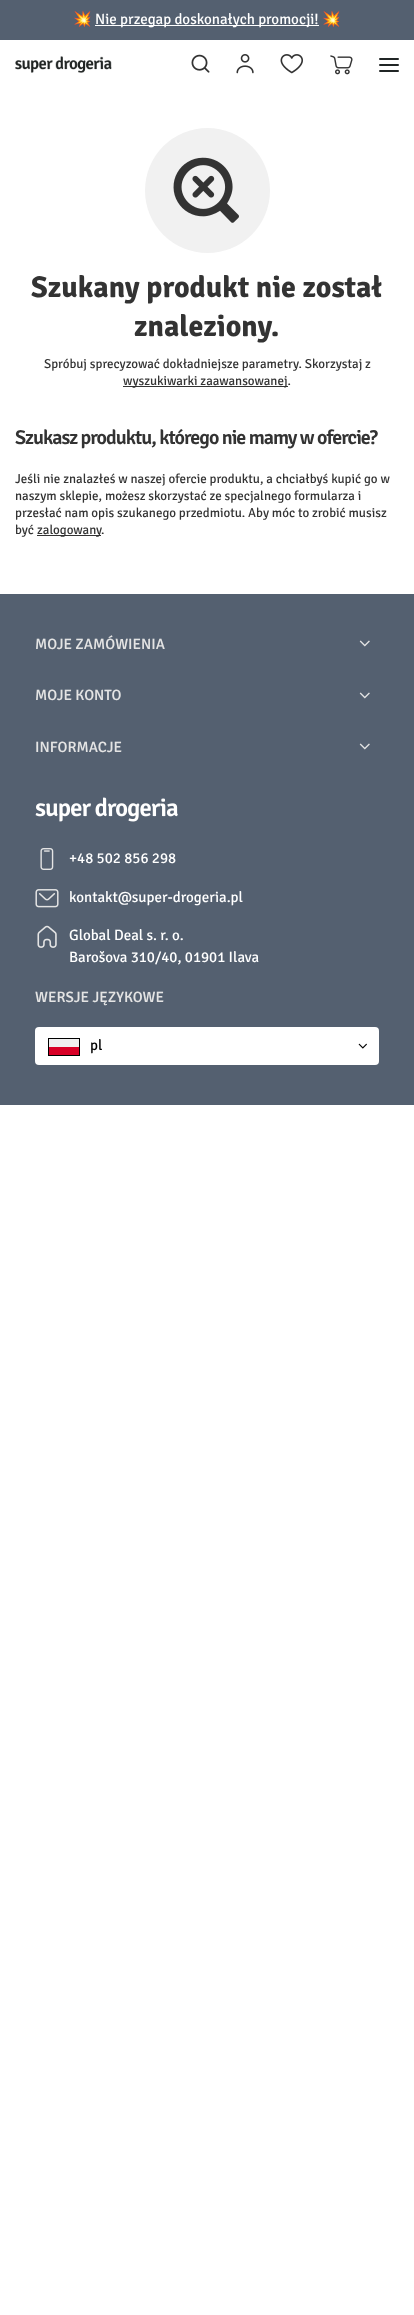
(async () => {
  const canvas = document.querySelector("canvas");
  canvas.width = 414;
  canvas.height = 2315;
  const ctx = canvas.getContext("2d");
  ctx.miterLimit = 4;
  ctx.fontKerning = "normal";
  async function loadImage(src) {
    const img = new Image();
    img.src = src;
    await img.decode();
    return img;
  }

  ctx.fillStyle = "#ffffff";
  ctx.fillRect(0, 0, 414, 2315);
  ctx.fillStyle = "#546070";
  ctx.fillRect(0, 0, 414, 40);
  ctx.fillStyle = "#ffffff";
  ctx.fillRect(95, 25, 224, 1);
  ctx.drawImage(await loadImage("img/1.png"), 15, 56, 97, 17);
  ctx.drawImage(await loadImage("img/2.png"), 191, 54, 19, 19);
  ctx.drawImage(await loadImage("img/3.png"), 236, 54, 18, 20);
  ctx.drawImage(await loadImage("img/4.png"), 280, 54, 23, 20);
  ctx.drawImage(await loadImage("img/5.png"), 330, 55, 23, 20);
  ctx.fillStyle = "#202525";
  ctx.beginPath();
  ctx.roundRect(379, 58, 20, 2, 1);
  ctx.fill();
  ctx.beginPath();
  ctx.roundRect(379, 64, 20, 2, 1);
  ctx.fill();
  ctx.beginPath();
  ctx.roundRect(379, 70, 20, 2, 1);
  ctx.fill();
  ctx.fillStyle = "#f1f1f1";
  ctx.beginPath();
  ctx.arc(207.5, 190.5, 62.5, 0, Math.PI * 2);
  ctx.fill();
  ctx.drawImage(await loadImage("img/6.png"), 173, 157, 66, 66);
  for (const [x, y, w, h, color] of [
    [123, 386, 165, 1, "#333333"],
    [37, 535, 64, 1, "#333333"],
    [0, 594, 414, 511, "#546070"],
  ]) {
    ctx.fillStyle = color;
    ctx.fillRect(x, y, w, h);
  }
  ctx.drawImage(await loadImage("img/7.png"), 359, 640, 11, 7);
  ctx.drawImage(await loadImage("img/7.png"), 359, 692, 11, 7);
  ctx.drawImage(await loadImage("img/7.png"), 359, 743, 11, 7);
  ctx.drawImage(await loadImage("img/8.png"), 35, 797, 143, 25);
  ctx.drawImage(await loadImage("img/9.png"), 40, 848, 14, 22);
  ctx.drawImage(await loadImage("img/10.png"), 35, 889, 24, 19);
  ctx.drawImage(await loadImage("img/11.png"), 37, 925, 20, 23);
  ctx.fillStyle = "#ffffff";
  ctx.beginPath();
  ctx.roundRect(35, 1027, 344, 38, 4);
  ctx.fill();
  ctx.fillStyle = "#f0f0f0";
  ctx.fillRect(49, 1039, 30, 8);
  ctx.fillStyle = "#d80027";
  ctx.fillRect(49, 1047, 30, 8);
  ctx.strokeStyle = "#000000";
  ctx.strokeRect(48.5, 1038.5, 31, 17);
  ctx.drawImage(await loadImage("img/12.png"), 358, 1043, 9, 6);
  ctx.font = "15px Noto Color Emoji";
  ctx.fillStyle = "#ffffff";
  ctx.fillText("💥", 73, 24);
  ctx.font = "15px Signika";
  ctx.fillText("Nie przegap doskonałych promocji!", 95, 24);
  ctx.font = "15px Noto Color Emoji";
  ctx.fillText("💥", 322, 24);
  ctx.font = "bold 30px Signika";
  ctx.fillStyle = "#333333";
  ctx.fillText("Szukany produkt nie został", 31, 297);
  ctx.fillText("znaleziony.", 134, 336);
  ctx.font = "13px Signika";
  ctx.fillText("Spróbuj sprecyzować dokładniejsze parametry. Skorzystaj z", 44, 368);
  ctx.fillText("wyszukiwarki zaawansowanej.", 123, 385);
  ctx.letterSpacing = "-1px";
  ctx.font = "600 20px Signika";
  ctx.fillText("Szukasz produktu, którego nie mamy w ofercie?", 15, 444);
  ctx.letterSpacing = "0px";
  ctx.font = "13px Signika";
  for (const [text, x, y] of [
    ["Jeśli nie znalazłeś w naszej ofercie produktu, a chciałbyś kupić go w", 15, 483],
    ["naszym sklepie, możesz skorzystać ze specjalnego formularza i", 15, 500],
    ["przesłać nam opis szukanego przedmiotu. Aby móc to zrobić musisz", 15, 517],
    ["być", 15, 534],
    ["zalogowany", 37, 534],
    [".", 101, 534],
  ]) {
    ctx.fillText(text, x, y);
  }
  ctx.font = "500 15px Signika";
  ctx.fillStyle = "#e4e4e4";
  for (const [text, x, y] of [
    ["MOJE ZAMÓWIENIA", 35, 649],
    ["MOJE KONTO", 35, 700],
    ["INFORMACJE", 35, 752],
  ]) {
    ctx.fillText(text, x, y);
  }
  ctx.font = "15px Signika";
  ctx.fillStyle = "#ffffff";
  for (const [text, x, y] of [
    ["+48 502 856 298", 69, 863],
    ["kontakt@super-drogeria.pl", 69, 902],
    ["Global Deal s. r. o.", 69, 940],
    ["Barošova 310/40, 01901 Ilava", 69, 962],
  ]) {
    ctx.fillText(text, x, y);
  }
  ctx.font = "500 15px Signika";
  ctx.fillStyle = "#e4e4e4";
  ctx.fillText("WERSJE JĘZYKOWE", 35, 1002);
  ctx.font = "15px Signika";
  ctx.fillStyle = "#000000";
  ctx.fillText("pl", 90, 1050);
})();
